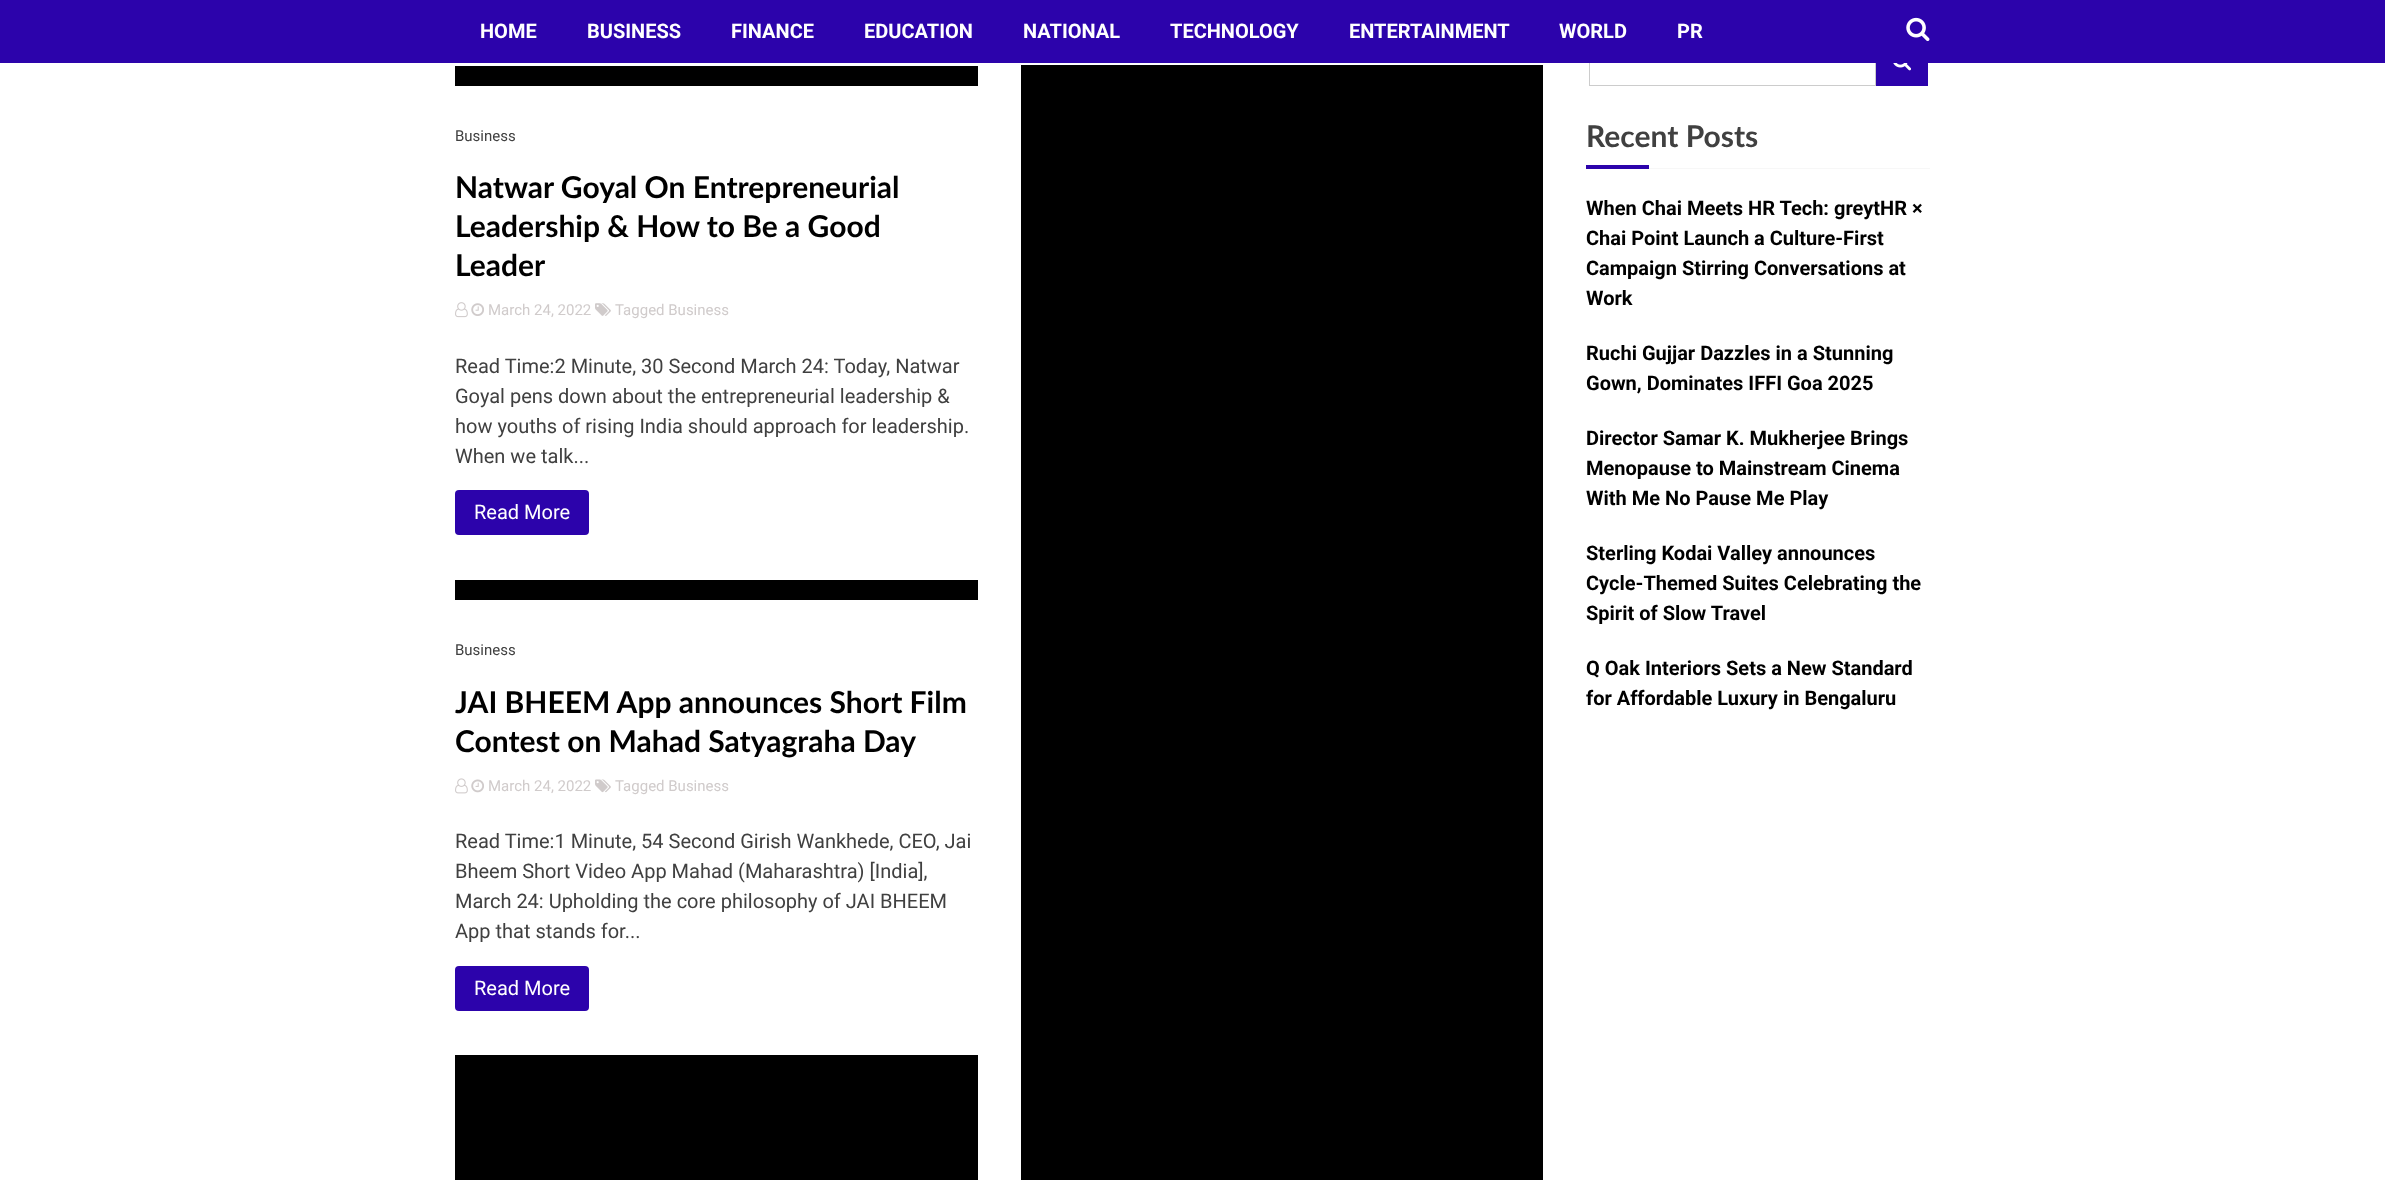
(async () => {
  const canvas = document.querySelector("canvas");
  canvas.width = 2385;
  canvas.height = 1180;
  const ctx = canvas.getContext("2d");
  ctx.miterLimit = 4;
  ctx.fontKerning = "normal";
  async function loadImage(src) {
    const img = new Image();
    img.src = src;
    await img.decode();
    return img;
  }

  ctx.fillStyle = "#ffffff";
  ctx.fillRect(0, 0, 2385, 1180);
  ctx.strokeStyle = "#cccccc";
  ctx.strokeRect(1589.5, 36.5, 286, 49);
  ctx.fillStyle = "#2c03ab";
  ctx.fillRect(0, 0, 2385, 63);
  ctx.drawImage(await loadImage("img/1.png"), 1906, 17, 24, 25);
  ctx.fillStyle = "#000000";
  ctx.fillRect(455, 66, 523, 20);
  ctx.drawImage(await loadImage("img/2.png"), 455, 302, 13, 16);
  ctx.drawImage(await loadImage("img/3.png"), 471, 303, 13, 13);
  ctx.drawImage(await loadImage("img/4.png"), 595, 303, 16, 13);
  ctx.fillStyle = "#2c03ab";
  ctx.beginPath();
  ctx.roundRect(455, 490, 134, 45, 4);
  ctx.fill();
  ctx.fillStyle = "#000000";
  ctx.fillRect(1021, 65, 522, 1115);
  ctx.fillRect(455, 580, 523, 20);
  ctx.drawImage(await loadImage("img/5.png"), 455, 778, 13, 16);
  ctx.drawImage(await loadImage("img/6.png"), 471, 779, 13, 14);
  ctx.drawImage(await loadImage("img/7.png"), 595, 779, 16, 14);
  ctx.fillStyle = "#2c03ab";
  ctx.beginPath();
  ctx.roundRect(455, 966, 134, 45, 4);
  ctx.fill();
  ctx.fillStyle = "#000000";
  ctx.fillRect(455, 1055, 523, 125);
  ctx.fillStyle = "#2c03ab";
  ctx.fillRect(1876, 63, 52, 23);
  ctx.drawImage(await loadImage("img/8.png"), 1893, 63, 18, 8);
  ctx.fillStyle = "#f7f7f7";
  ctx.fillRect(1649, 168, 281, 1);
  ctx.fillStyle = "#2c03ab";
  ctx.fillRect(1586, 165, 63, 4);
  ctx.font = "bold 20px Roboto";
  ctx.fillStyle = "#ffffff";
  for (const [text, x, y] of [
    ["HOME", 480, 38],
    ["BUSINESS", 587, 38],
    ["FINANCE", 731, 38],
    ["EDUCATION", 864, 38],
    ["NATIONAL", 1023, 38],
    ["TECHNOLOGY", 1170, 38],
    ["ENTERTAINMENT", 1349, 38],
    ["WORLD", 1559, 38],
    ["PR", 1677, 38],
  ]) {
    ctx.fillText(text, x, y);
  }
  ctx.font = "15px Roboto";
  ctx.fillStyle = "#404040";
  ctx.fillText("Business", 455, 141);
  ctx.font = "bold 30px Lato";
  ctx.fillStyle = "#000000";
  for (const [text, x, y] of [
    ["Natwar Goyal On Entrepreneurial", 455, 198],
    ["Leadership & How to Be a Good", 455, 237],
    ["Leader", 455, 276],
  ]) {
    ctx.fillText(text, x, y);
  }
  ctx.font = "15px Roboto";
  ctx.fillStyle = "#d0cbcb";
  ctx.fillText("March 24, 2022", 488, 315);
  ctx.fillText("Tagged Business", 615, 315);
  ctx.font = "20px Roboto";
  ctx.fillStyle = "#404040";
  for (const [text, x, y] of [
    ["Read Time:2 Minute, 30 Second March 24: Today, Natwar", 455, 373],
    ["Goyal pens down about the entrepreneurial leadership &", 455, 403],
    ["how youths of rising India should approach for leadership.", 455, 433],
    ["When we talk...", 455, 463],
  ]) {
    ctx.fillText(text, x, y);
  }
  ctx.fillStyle = "#ffffff";
  ctx.fillText("Read More", 474, 519);
  ctx.font = "15px Roboto";
  ctx.fillStyle = "#404040";
  ctx.fillText("Business", 455, 655);
  ctx.font = "bold 30px Lato";
  ctx.fillStyle = "#000000";
  ctx.fillText("JAI BHEEM App announces Short Film", 455, 713);
  ctx.fillText("Contest on Mahad Satyagraha Day", 455, 752);
  ctx.font = "15px Roboto";
  ctx.fillStyle = "#d0cbcb";
  ctx.fillText("March 24, 2022", 488, 791);
  ctx.fillText("Tagged Business", 615, 791);
  ctx.font = "20px Roboto";
  ctx.fillStyle = "#404040";
  for (const [text, x, y] of [
    ["Read Time:1 Minute, 54 Second Girish Wankhede, CEO, Jai", 455, 848],
    ["Bheem Short Video App Mahad (Maharashtra) [India],", 455, 878],
    ["March 24: Upholding the core philosophy of JAI BHEEM", 455, 908],
    ["App that stands for...", 455, 938],
  ]) {
    ctx.fillText(text, x, y);
  }
  ctx.fillStyle = "#ffffff";
  ctx.fillText("Read More", 474, 995);
  ctx.font = "bold 30px Lato";
  ctx.fillStyle = "#404040";
  ctx.fillText("Recent Posts", 1586, 147);
  ctx.font = "bold 20px Roboto";
  ctx.fillStyle = "#000000";
  for (const [text, x, y] of [
    ["When Chai Meets HR Tech: greytHR ×", 1586, 215],
    ["Chai Point Launch a Culture-First", 1586, 245],
    ["Campaign Stirring Conversations at", 1586, 275],
    ["Work", 1586, 305],
    ["Ruchi Gujjar Dazzles in a Stunning", 1586, 360],
    ["Gown, Dominates IFFI Goa 2025", 1586, 390],
    ["Director Samar K. Mukherjee Brings", 1586, 445],
    ["Menopause to Mainstream Cinema", 1586, 475],
    ["With Me No Pause Me Play", 1586, 505],
    ["Sterling Kodai Valley announces", 1586, 560],
    ["Cycle-Themed Suites Celebrating the", 1586, 590],
    ["Spirit of Slow Travel", 1586, 620],
    ["Q Oak Interiors Sets a New Standard", 1586, 675],
    ["for Affordable Luxury in Bengaluru", 1586, 705],
  ]) {
    ctx.fillText(text, x, y);
  }
})();
